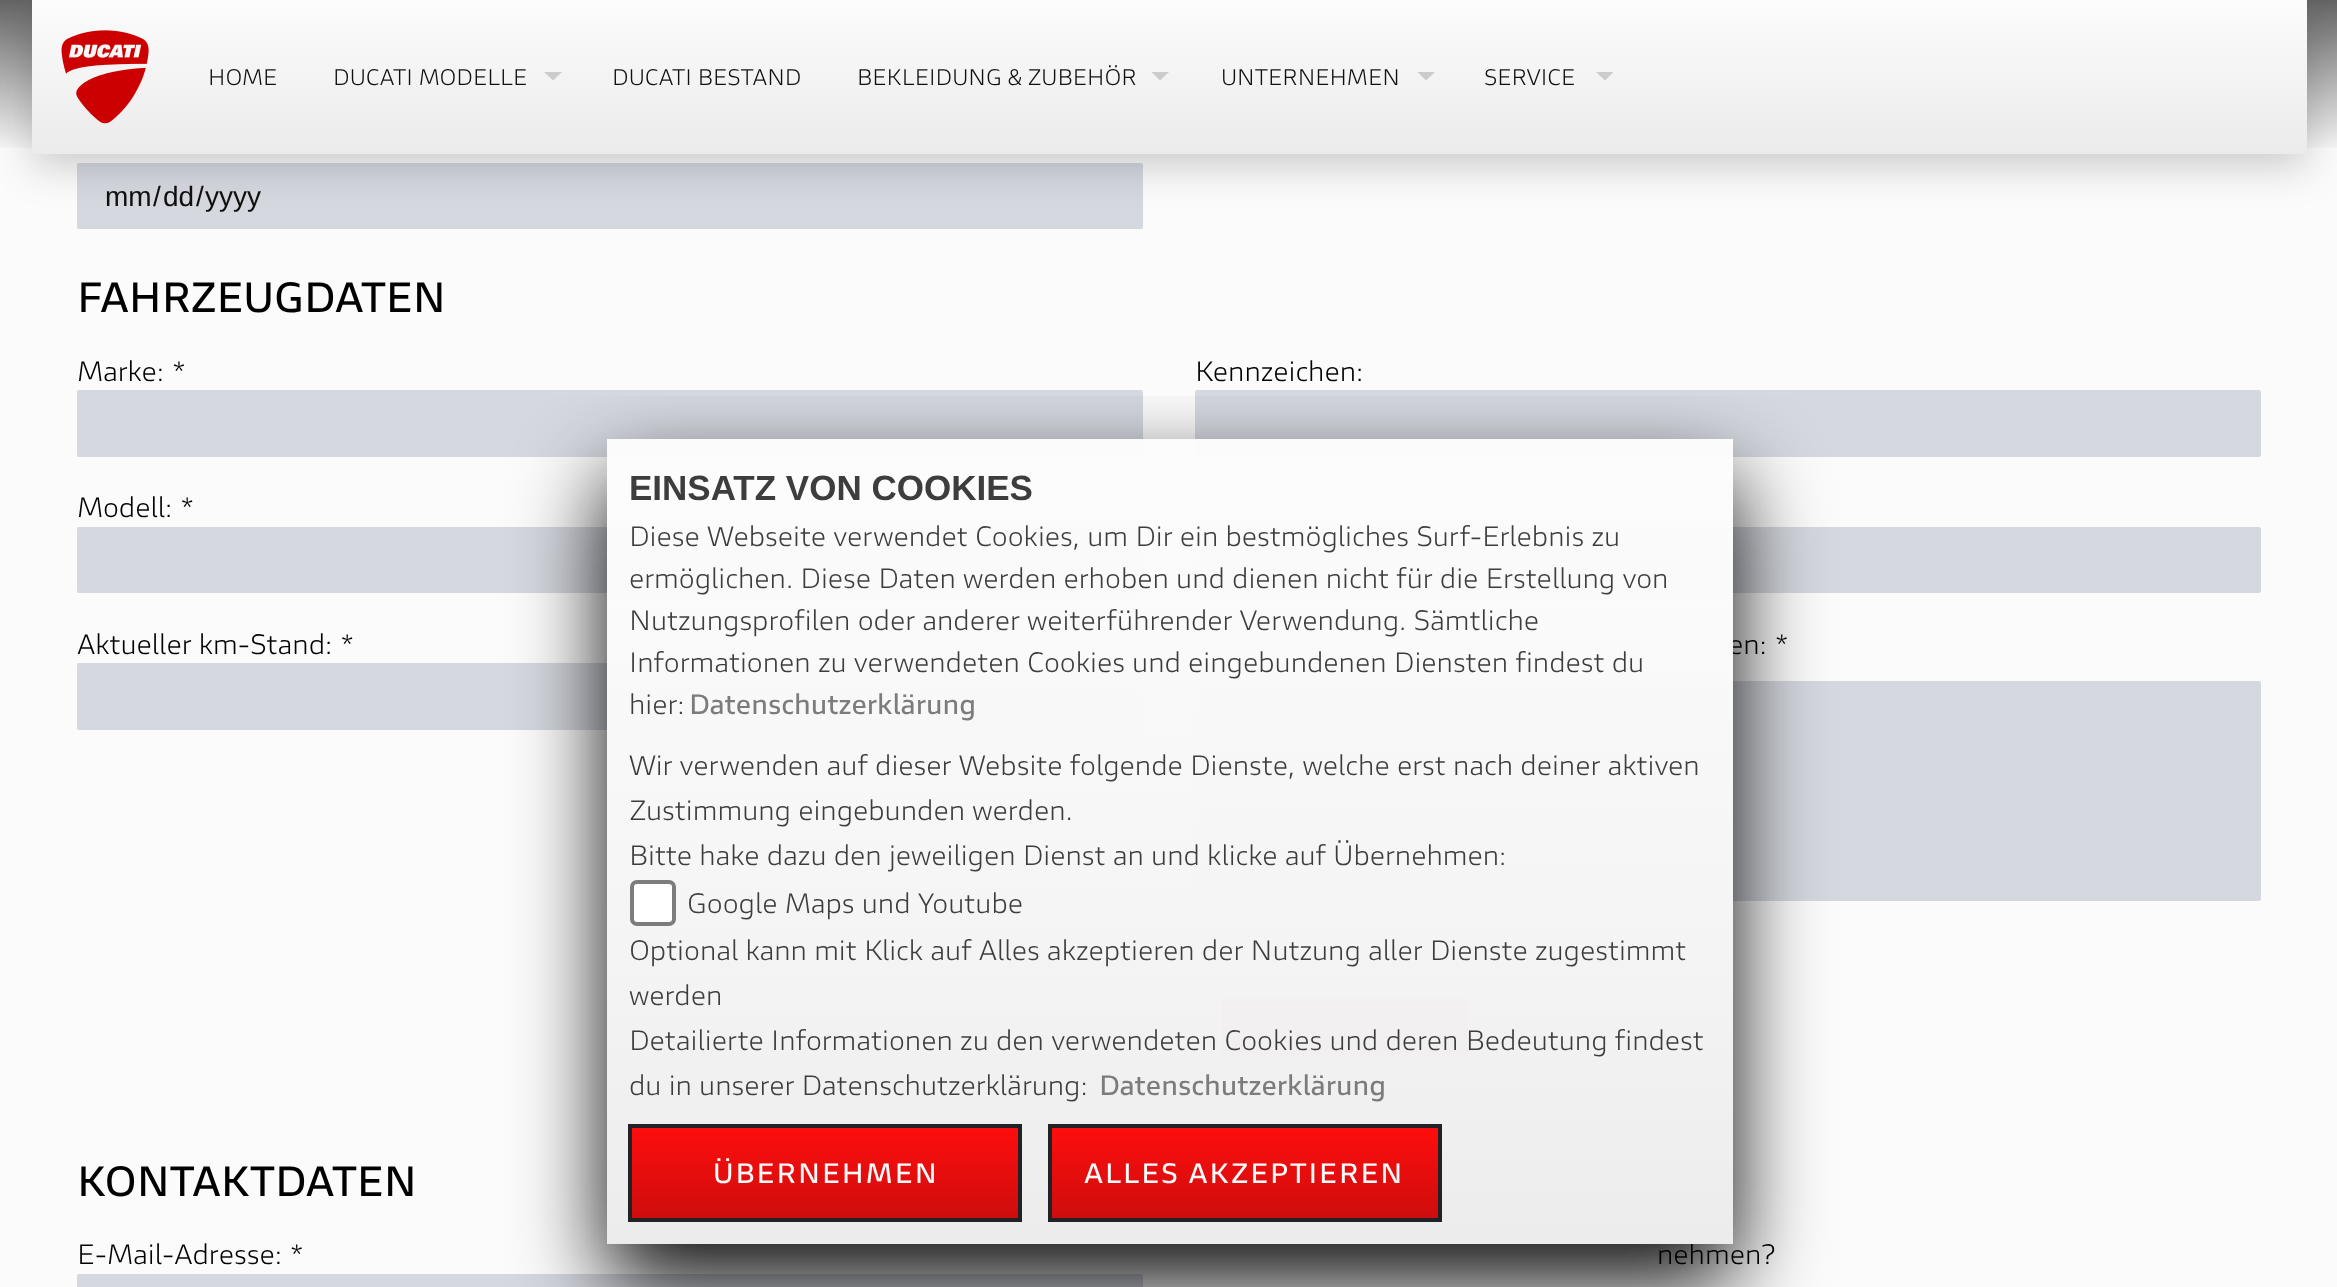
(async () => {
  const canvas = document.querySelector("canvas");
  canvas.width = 2337;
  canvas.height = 1287;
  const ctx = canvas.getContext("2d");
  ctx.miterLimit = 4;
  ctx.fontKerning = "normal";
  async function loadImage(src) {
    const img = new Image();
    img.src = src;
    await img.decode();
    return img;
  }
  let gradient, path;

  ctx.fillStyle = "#fbfbfb";
  ctx.fillRect(0, 0, 2337, 1287);
  gradient = ctx.createLinearGradient(1169, 154, 1169, 0);
  gradient.addColorStop(0, "rgba(0, 0, 0, 0)");
  gradient.addColorStop(1, "rgba(0, 0, 0, 0.6)");
  ctx.fillStyle = gradient;
  ctx.fillRect(0, 0, 2337, 148);
  ctx.fillStyle = "#d5d8df";
  ctx.beginPath();
  ctx.roundRect(77, 163, 1066, 66, 2);
  ctx.fill();
  ctx.fillStyle = "rgba(0, 0, 0, 0.2)";
  ctx.filter = "blur(21px)";
  ctx.beginPath();
  ctx.rect(32, 11, 2275, 154);
  ctx.fill();
  ctx.filter = "none";
  gradient = ctx.createLinearGradient(1169, 0, 1169, 154);
  gradient.addColorStop(0, "#fcfcfc");
  gradient.addColorStop(1, "#ebebeb");
  ctx.fillStyle = gradient;
  ctx.fillRect(32, 0, 2275, 154);
  ctx.drawImage(await loadImage("img/1.png"), 61, 30, 88, 94);
  ctx.fillStyle = "#cccccc";
  path = new Path2D("M544 72H562L553 80.5Z");
  ctx.fill(path);
  path = new Path2D("M1151.5 72H1169L1160 80.5Z");
  ctx.fill(path);
  path = new Path2D("M1417.5 72H1435L1426 80.5Z");
  ctx.fill(path);
  path = new Path2D("M1596 72H1613.5L1605 80.5Z");
  ctx.fill(path);
  ctx.fillStyle = "#d5d8df";
  ctx.beginPath();
  ctx.roundRect(77, 390, 1066, 67, 2);
  ctx.fill();
  ctx.beginPath();
  ctx.roundRect(77, 527, 1066, 66, 2);
  ctx.fill();
  ctx.beginPath();
  ctx.roundRect(77, 663, 1066, 67, 2);
  ctx.fill();
  ctx.beginPath();
  ctx.roundRect(1195, 390, 1066, 67, 2);
  ctx.fill();
  ctx.beginPath();
  ctx.roundRect(1195, 527, 1066, 66, 2);
  ctx.fill();
  ctx.beginPath();
  ctx.roundRect(1195, 681, 1066, 220, 2);
  ctx.fill();
  ctx.fillStyle = "#cc0000";
  ctx.fillRect(1222, 998, 246, 59);
  ctx.fillStyle = "#d5d8df";
  ctx.beginPath();
  ctx.roundRect(77, 1274, 1066, 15, 2);
  ctx.fill();
  ctx.save();
  ctx.beginPath();
  ctx.rect(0, 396, 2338, 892);
  ctx.clip();
  path = new Path2D("M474 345H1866V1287H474ZM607 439H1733V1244H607Z");
  ctx.clip(path, "evenodd");
  ctx.fillStyle = "rgba(0, 0, 0, 0.95)";
  ctx.filter = "blur(44px)";
  ctx.beginPath();
  ctx.rect(607, 478, 1126, 805);
  ctx.fill();
  ctx.filter = "none";
  ctx.restore();
  ctx.font = "22.4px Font";
  ctx.fillStyle = "#0f0f0f";
  for (const [text, x, y] of [
    ["HOME", 208, 85],
    ["DUCATI MODELLE", 333, 85],
    ["DUCATI BESTAND", 612, 85],
    ["BEKLEIDUNG & ZUBEHÖR", 857, 85],
    ["UNTERNEHMEN", 1221, 85],
    ["SERVICE", 1484, 85],
  ]) {
    ctx.fillText(text, x, y);
  }
  ctx.font = "28px Liberation Sans";
  for (const [text, x, y] of [
    ["mm", 105, 206],
    ["/", 153, 206],
    ["dd", 163, 206],
    ["/", 196, 206],
    ["yyyy", 205, 206],
  ]) {
    ctx.fillText(text, x, y);
  }
  ctx.font = "bold 42px Font";
  ctx.fillStyle = "#000000";
  ctx.fillText("FAHRZEUGDATEN", 77, 312);
  ctx.font = "28px Font";
  for (const [text, x, y] of [
    ["Marke: *", 77, 381],
    ["Modell: *", 77, 517],
    ["Aktueller km-Stand: *", 77, 654],
    ["Kennzeichen:", 1195, 381],
    ["en: *", 1728, 654],
  ]) {
    ctx.fillText(text, x, y);
  }
  ctx.font = "bold 42px Font";
  ctx.fillText("KONTAKTDATEN", 77, 1196);
  ctx.font = "28px Font";
  ctx.fillText("E-Mail-Adresse: *", 77, 1264);
  ctx.fillText("nehmen?", 1657, 1264);
  ctx.fillStyle = "rgba(250, 250, 250, 0.95)";
  ctx.fillRect(607, 439, 1126, 805);
  gradient = ctx.createLinearGradient(1170, 439, 1170, 1244);
  gradient.addColorStop(0, "rgba(255, 255, 255, 0.47)");
  gradient.addColorStop(1, "rgba(235, 235, 235, 0.95)");
  ctx.fillStyle = gradient;
  ctx.fillRect(607, 439, 1126, 805);
  ctx.font = "bold 35px Liberation Sans";
  ctx.fillStyle = "#3d3d3d";
  ctx.fillText("EINSATZ VON COOKIES", 629, 500);
  ctx.font = "28px Font";
  for (const [text, x, y] of [
    ["Diese Webseite verwendet Cookies, um Dir ein bestmögliches Surf-Erlebnis zu", 629, 546],
    ["ermöglichen. Diese Daten werden erhoben und dienen nicht für die Erstellung von", 629, 588],
    ["Nutzungsprofilen oder anderer weiterführender Verwendung. Sämtliche", 629, 630],
    ["Informationen zu verwendeten Cookies und eingebundenen Diensten findest du", 629, 672],
    ["hier:", 629, 714],
  ]) {
    ctx.fillText(text, x, y);
  }
  ctx.font = "bold 28px Font";
  ctx.fillStyle = "#7c7c7c";
  ctx.fillText("Datenschutzerklärung", 689, 714);
  ctx.font = "28px Font";
  ctx.fillStyle = "#3d3d3d";
  for (const [text, x, y] of [
    ["Wir verwenden auf dieser Website folgende Dienste, welche erst nach deiner aktiven", 629, 775],
    ["Zustimmung eingebunden werden.", 629, 820],
    ["Bitte hake dazu den jeweiligen Dienst an und klicke auf Übernehmen:", 629, 865],
  ]) {
    ctx.fillText(text, x, y);
  }
  ctx.fillStyle = "#ffffff";
  ctx.beginPath();
  ctx.roundRect(632, 882, 42, 42, 5);
  ctx.fill();
  ctx.strokeStyle = "#7d7d7d";
  ctx.lineWidth = 4;
  ctx.stroke();
  ctx.fillStyle = "#3d3d3d";
  for (const [text, x, y] of [
    ["Google Maps und Youtube", 687, 913],
    ["Optional kann mit Klick auf Alles akzeptieren der Nutzung aller Dienste zugestimmt", 629, 960],
    ["werden", 629, 1005],
    ["Detailierte Informationen zu den verwendeten Cookies und deren Bedeutung findest", 629, 1050],
    ["du in unserer Datenschutzerklärung:", 629, 1095],
  ]) {
    ctx.fillText(text, x, y);
  }
  ctx.font = "bold 28px Font";
  ctx.fillStyle = "#7c7c7c";
  ctx.fillText("Datenschutzerklärung", 1099, 1095);
  gradient = ctx.createLinearGradient(825, 1127, 825, 1218);
  gradient.addColorStop(0, "#ff0d0d");
  gradient.addColorStop(1, "#ce0d0d");
  ctx.fillStyle = gradient;
  ctx.fillRect(632, 1128, 386, 90);
  ctx.strokeStyle = "#212225";
  ctx.strokeRect(630, 1126, 390, 94);
  ctx.letterSpacing = "1.9px";
  ctx.fillStyle = "#fafafa";
  ctx.fillText("ÜBERNEHMEN", 713, 1183);
  gradient = ctx.createLinearGradient(1245, 1127, 1245, 1218);
  gradient.addColorStop(0, "#ff0d0d");
  gradient.addColorStop(1, "#ce0d0d");
  ctx.fillStyle = gradient;
  ctx.fillRect(1052, 1128, 386, 90);
  ctx.strokeRect(1050, 1126, 390, 94);
  ctx.fillStyle = "#fafafa";
  ctx.fillText("ALLES AKZEPTIEREN", 1084, 1183);
})();
